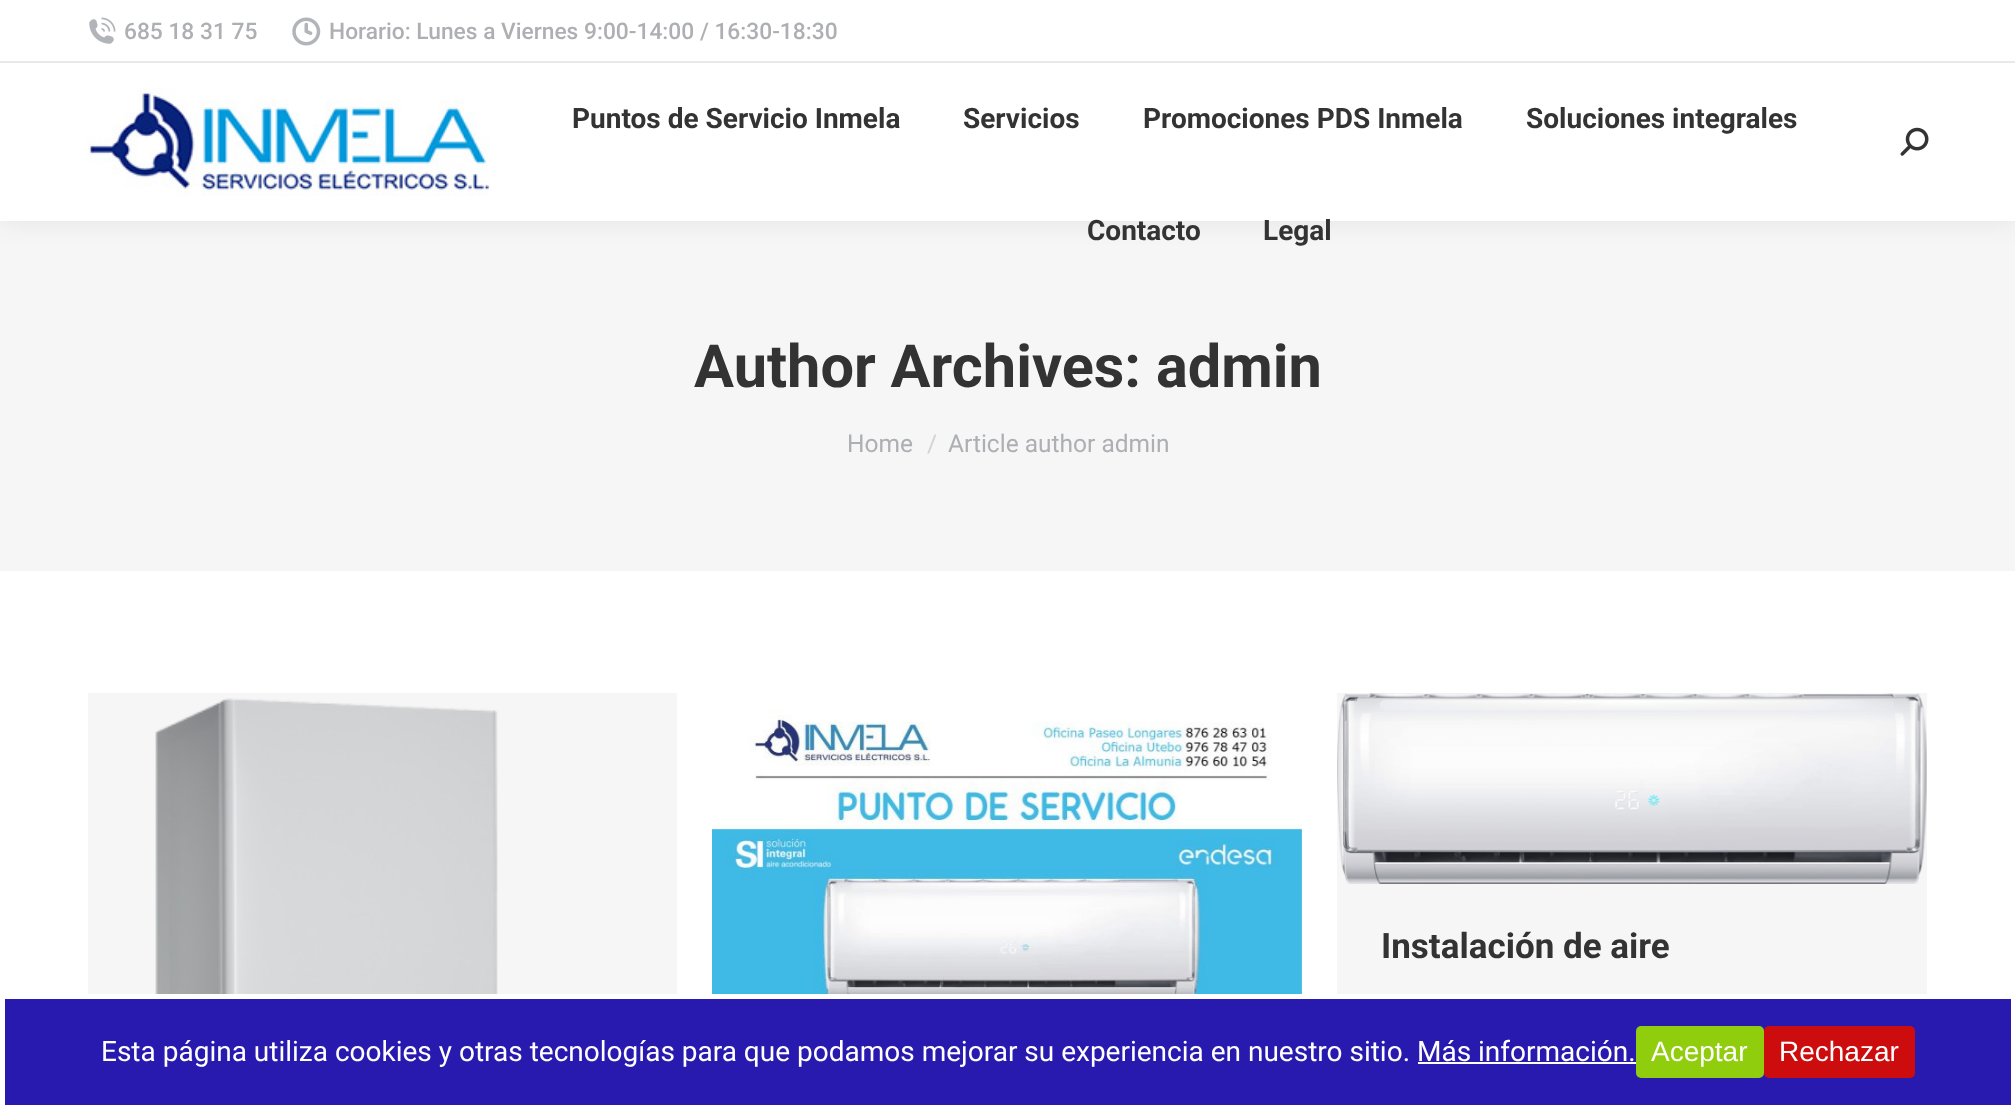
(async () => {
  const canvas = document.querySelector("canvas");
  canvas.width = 2015;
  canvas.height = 1108;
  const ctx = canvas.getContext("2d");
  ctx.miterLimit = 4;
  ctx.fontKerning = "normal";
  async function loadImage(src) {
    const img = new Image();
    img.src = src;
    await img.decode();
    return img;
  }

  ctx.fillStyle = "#ffffff";
  ctx.fillRect(0, 0, 2015, 1108);
  ctx.fillStyle = "#f6f6f6";
  ctx.fillRect(0, 221, 2015, 350);
  ctx.fillStyle = "rgba(0, 0, 0, 0.07)";
  ctx.filter = "blur(13px)";
  ctx.beginPath();
  ctx.rect(-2, -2, 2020, 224);
  ctx.fill();
  ctx.filter = "none";
  ctx.fillStyle = "#ffffff";
  ctx.fillRect(0, 0, 2015, 221);
  ctx.drawImage(await loadImage("img/1.png"), 89, 17, 27, 27);
  ctx.drawImage(await loadImage("img/2.png"), 292, 17, 29, 29);
  ctx.fillStyle = "#e9e9e9";
  ctx.fillRect(0, 61, 2015, 2);
  ctx.drawImage(await loadImage("img/3.png"), 87, 88, 403, 108);
  ctx.drawImage(await loadImage("img/4.png"), 1900, 127, 29, 29);
  ctx.fillStyle = "#f6f6f6";
  ctx.fillRect(88, 693, 589, 301);
  ctx.drawImage(await loadImage("img/5.png"), 155, 698, 343, 296);
  ctx.drawImage(await loadImage("img/6.png"), 712, 693, 590, 301);
  ctx.fillRect(1337, 693, 590, 301);
  ctx.drawImage(await loadImage("img/7.png"), 1337, 693, 590, 191);
  ctx.fillStyle = "#291aaf";
  ctx.beginPath();
  ctx.roundRect(2.5, 996.5, 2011, 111, 2.5);
  ctx.fill();
  ctx.strokeStyle = "#ffffff";
  ctx.lineWidth = 5;
  ctx.stroke();
  ctx.fillStyle = "#ffffff";
  ctx.fillRect(1418, 1062, 218, 2);
  ctx.fillStyle = "#90cd0d";
  ctx.beginPath();
  ctx.roundRect(1636, 1026, 128, 52, 5);
  ctx.fill();
  ctx.fillStyle = "#cd0d0d";
  ctx.beginPath();
  ctx.roundRect(1764, 1026, 151, 52, 5);
  ctx.fill();
  ctx.font = "500 22.75px Roboto";
  ctx.fillStyle = "#adafb3";
  ctx.fillText("685 18 31 75", 124, 39);
  ctx.fillText("Horario: Lunes a Viernes 9:00-14:00 / 16:30-18:30", 329, 39);
  ctx.font = "bold 28px Roboto";
  ctx.fillStyle = "#333333";
  for (const [text, x, y] of [
    ["Puntos de Servicio Inmela", 572, 128],
    ["Servicios", 963, 128],
    ["Promociones PDS Inmela", 1143, 128],
    ["Soluciones integrales", 1526, 128],
    ["Contacto", 1087, 240],
    ["Legal", 1263, 240],
  ]) {
    ctx.fillText(text, x, y);
  }
  ctx.font = "bold 59.5px Roboto";
  ctx.fillText("Author Archives: admin", 694, 387);
  ctx.font = "24.5px Roboto";
  ctx.fillStyle = "#adafb3";
  ctx.fillText("Home", 847, 452);
  ctx.fillStyle = "#d2d3d5";
  ctx.fillText("/", 927, 452);
  ctx.fillStyle = "#adafb3";
  ctx.fillText("Article author admin", 948, 452);
  ctx.font = "bold 35px Roboto";
  ctx.fillStyle = "#333333";
  ctx.fillText("Instalación de aire", 1381, 958);
  ctx.font = "28px Roboto";
  ctx.fillStyle = "#ffffff";
  ctx.fillText("Esta página utiliza cookies y otras tecnologías para que podamos mejorar su experiencia en nuestro sitio. Más información.", 101, 1061);
  ctx.font = "28px Liberation Sans";
  ctx.fillText("Aceptar", 1651, 1061);
  ctx.fillText("Rechazar", 1779, 1061);
})();
